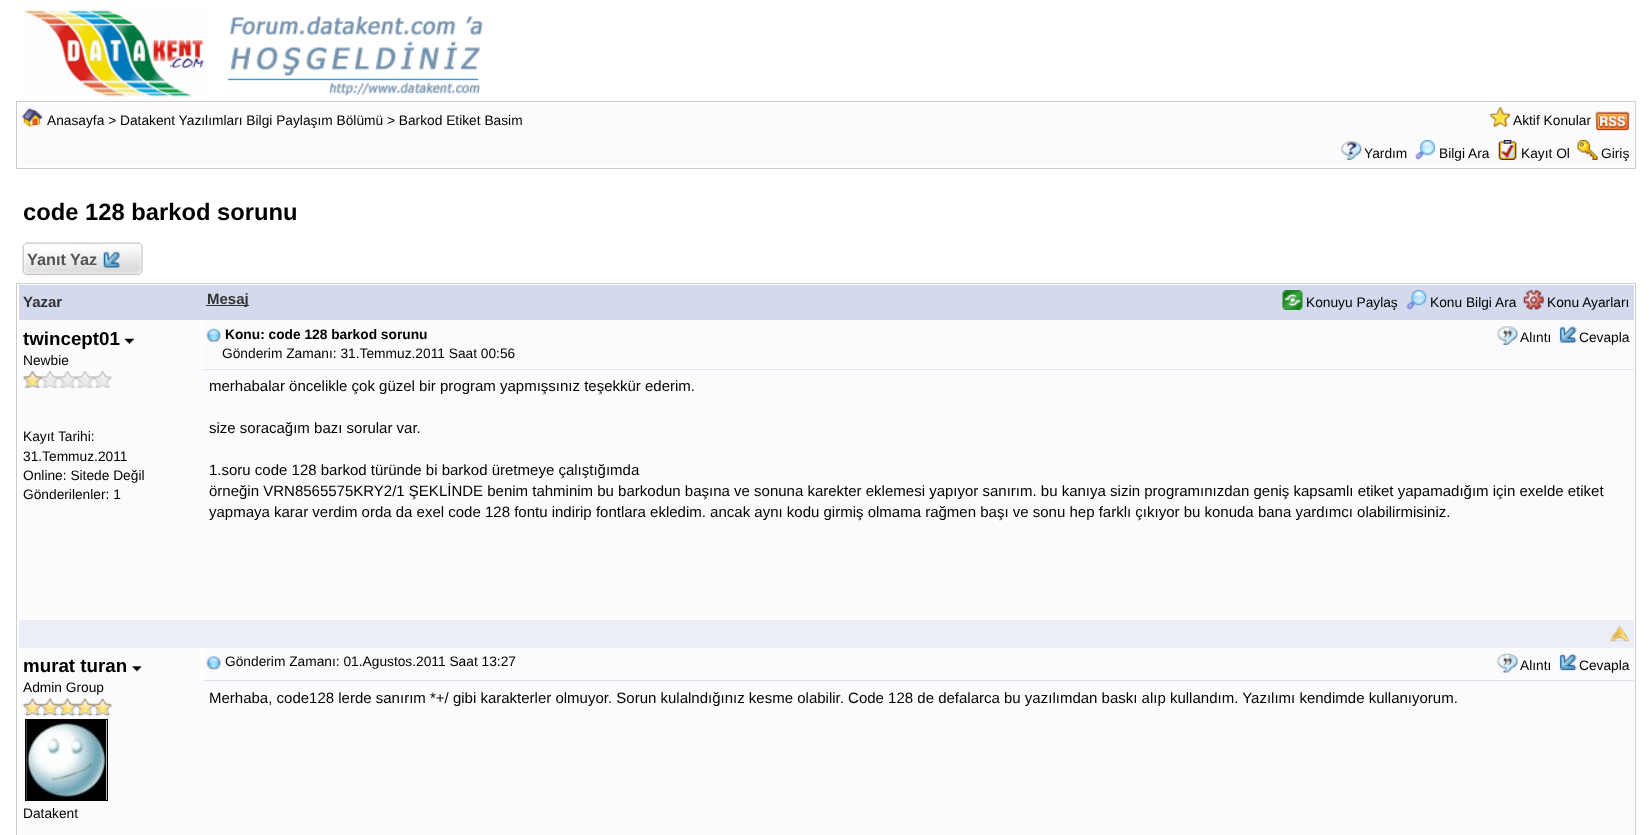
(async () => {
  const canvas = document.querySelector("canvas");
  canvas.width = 1652;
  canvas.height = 835;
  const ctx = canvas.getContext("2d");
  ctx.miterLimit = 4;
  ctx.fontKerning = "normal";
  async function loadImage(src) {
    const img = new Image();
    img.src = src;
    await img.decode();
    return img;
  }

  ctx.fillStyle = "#ffffff";
  ctx.fillRect(0, 0, 1652, 835);
  ctx.drawImage(await loadImage("img/1.png"), 23, 10, 460, 87);
  ctx.strokeStyle = "#cccccc";
  ctx.strokeRect(16.5, 101.5, 1619, 67);
  ctx.fillStyle = "#fbfbfd";
  ctx.fillRect(19, 104, 1615, 31);
  ctx.drawImage(await loadImage("img/2.png"), 22, 108, 21, 19);
  ctx.drawImage(await loadImage("img/3.png"), 1490, 107, 20, 21);
  ctx.drawImage(await loadImage("img/4.png"), 1595, 111, 35, 20);
  ctx.fillRect(19, 136, 1615, 30);
  ctx.drawImage(await loadImage("img/5.png"), 1341, 141, 21, 19);
  ctx.drawImage(await loadImage("img/6.png"), 1415, 140, 20, 20);
  ctx.drawImage(await loadImage("img/7.png"), 1498, 140, 19, 20);
  ctx.drawImage(await loadImage("img/8.png"), 1577, 140, 21, 20);
  ctx.drawImage(await loadImage("img/9.png"), 22, 242, 121, 34);
  ctx.drawImage(await loadImage("img/10.png"), 103, 251, 18, 17);
  ctx.strokeRect(16.5, 283.5, 1619, 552);
  ctx.fillStyle = "#d3daed";
  ctx.fillRect(19, 285, 1615, 35);
  ctx.fillStyle = "#333333";
  ctx.fillRect(206, 305, 43, 1);
  ctx.drawImage(await loadImage("img/11.png"), 1282, 290, 21, 20);
  ctx.drawImage(await loadImage("img/12.png"), 1406, 290, 21, 20);
  ctx.drawImage(await loadImage("img/13.png"), 1523, 290, 21, 20);
  ctx.fillStyle = "#fbfbfd";
  ctx.fillRect(19, 321, 182, 48);
  ctx.drawImage(await loadImage("img/14.png"), 125, 338, 9, 6);
  ctx.fillRect(19, 369, 1615, 250);
  ctx.drawImage(await loadImage("img/15.png"), 22, 370, 90, 19);
  ctx.fillRect(203, 321, 1431, 47);
  ctx.drawImage(await loadImage("img/16.png"), 206, 328, 16, 15);
  ctx.drawImage(await loadImage("img/17.png"), 1497, 326, 21, 19);
  ctx.drawImage(await loadImage("img/18.png"), 1559, 326, 18, 17);
  ctx.fillStyle = "#e1e3ec";
  ctx.fillRect(203, 369, 1431, 1);
  ctx.fillStyle = "#ebeef7";
  ctx.fillRect(19, 620, 1615, 28);
  ctx.drawImage(await loadImage("img/19.png"), 1610, 626, 19, 16);
  ctx.fillStyle = "#fbfbfd";
  ctx.fillRect(19, 649, 182, 31);
  ctx.drawImage(await loadImage("img/20.png"), 132, 666, 10, 6);
  ctx.fillRect(19, 680, 1615, 155);
  ctx.drawImage(await loadImage("img/21.png"), 22, 698, 91, 19);
  ctx.strokeStyle = "#000000";
  ctx.strokeRect(25.5, 719.5, 82, 81);
  ctx.drawImage(await loadImage("img/22.png"), 26, 720, 81, 80);
  ctx.fillRect(203, 649, 1431, 30);
  ctx.drawImage(await loadImage("img/23.png"), 206, 655, 16, 15);
  ctx.drawImage(await loadImage("img/24.png"), 1497, 653, 21, 20);
  ctx.drawImage(await loadImage("img/25.png"), 1559, 653, 18, 18);
  ctx.fillStyle = "#e1e3ec";
  ctx.fillRect(203, 680, 1431, 1);
  ctx.font = "13.75px Liberation Sans";
  ctx.fillStyle = "#000000";
  for (const [text, x, y] of [
    ["Anasayfa > Datakent Yazılımları Bilgi Paylaşım Bölümü > Barkod Etiket Basim", 47, 125],
    ["Aktif Konular", 1513, 125],
    ["Yardım", 1364, 158],
    ["Bilgi Ara", 1439, 158],
    ["Kayıt Ol", 1521, 158],
    ["Giriş", 1601, 158],
  ]) {
    ctx.fillText(text, x, y);
  }
  ctx.font = "bold 23.75px Liberation Sans";
  ctx.fillText("code 128 barkod sorunu", 23, 220);
  ctx.font = "bold 16.25px Liberation Sans";
  ctx.fillStyle = "#555555";
  ctx.fillText("Yanıt Yaz", 27, 265);
  ctx.font = "bold 15px Liberation Sans";
  ctx.fillStyle = "#333333";
  ctx.fillText("Yazar", 23, 307);
  ctx.fillText("Mesaj", 207, 304);
  ctx.font = "13.75px Liberation Sans";
  ctx.fillStyle = "#000000";
  for (const [text, x, y] of [
    ["Konuyu Paylaş", 1306, 307],
    ["Konu Bilgi Ara", 1430, 307],
    ["Konu Ayarları", 1547, 307],
  ]) {
    ctx.fillText(text, x, y);
  }
  ctx.font = "bold 18.75px Liberation Sans";
  ctx.fillText("twincept01", 23, 345);
  ctx.font = "13.75px Liberation Sans";
  for (const [text, x, y] of [
    ["Newbie", 23, 365],
    ["Kayıt Tarihi:", 23, 441],
    ["31.Temmuz.2011", 23, 461],
    ["Online: Sitede Değil", 23, 480],
    ["Gönderilenler: 1", 23, 499],
  ]) {
    ctx.fillText(text, x, y);
  }
  ctx.font = "bold 13.75px Liberation Sans";
  ctx.fillText("Konu: code 128 barkod sorunu", 225, 339);
  ctx.font = "13.75px Liberation Sans";
  for (const [text, x, y] of [
    ["Alıntı", 1520, 342],
    ["Cevapla", 1579, 342],
    ["Gönderim Zamanı: 31.Temmuz.2011 Saat 00:56", 222, 358],
  ]) {
    ctx.fillText(text, x, y);
  }
  ctx.font = "15px Liberation Sans";
  for (const [text, x, y] of [
    ["merhabalar öncelikle çok güzel bir program yapmışsınız teşekkür ederim.", 209, 391],
    ["size soracağım bazı sorular var.", 209, 433],
    ["1.soru code 128 barkod türünde bi barkod üretmeye çalıştığımda", 209, 475],
    ["örneğin VRN8565575KRY2/1 ŞEKLİNDE benim tahminim bu barkodun başına ve sonuna karekter eklemesi yapıyor sanırım. bu kanıya sizin programınızdan geniş kapsamlı etiket yapamadığım için exelde etiket", 209, 496],
    ["yapmaya karar verdim orda da exel code 128 fontu indirip fontlara ekledim. ancak aynı kodu girmiş olmama rağmen başı ve sonu hep farklı çıkıyor bu konuda bana yardımcı olabilirmisiniz.", 209, 517],
  ]) {
    ctx.fillText(text, x, y);
  }
  ctx.font = "bold 18.75px Liberation Sans";
  ctx.fillText("murat turan", 23, 672);
  ctx.font = "13.75px Liberation Sans";
  for (const [text, x, y] of [
    ["Admin Group", 23, 692],
    ["Datakent", 23, 818],
    ["Gönderim Zamanı: 01.Agustos.2011 Saat 13:27", 225, 666],
    ["Alıntı", 1520, 670],
    ["Cevapla", 1579, 670],
  ]) {
    ctx.fillText(text, x, y);
  }
  ctx.font = "15px Liberation Sans";
  ctx.fillText("Merhaba, code128 lerde sanırım *+/ gibi karakterler olmuyor. Sorun kulalndığınız kesme olabilir. Code 128 de defalarca bu yazılımdan baskı alıp kullandım. Yazılımı kendimde kullanıyorum.", 209, 703);
})();
